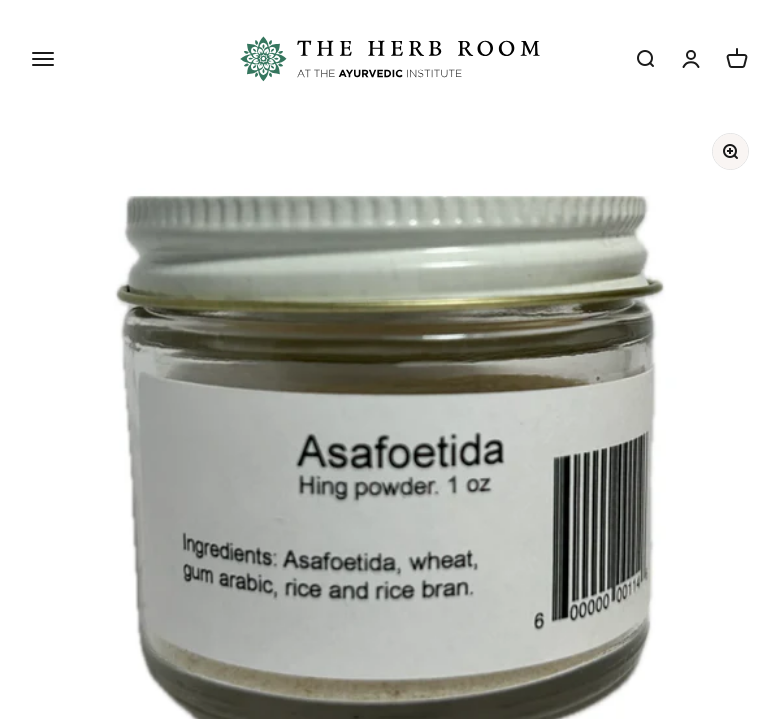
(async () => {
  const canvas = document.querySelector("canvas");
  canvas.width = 780;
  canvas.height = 719;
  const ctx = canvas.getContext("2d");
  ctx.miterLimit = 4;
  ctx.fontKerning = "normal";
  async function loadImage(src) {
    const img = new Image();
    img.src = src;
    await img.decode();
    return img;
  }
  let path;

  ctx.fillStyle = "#ffffff";
  ctx.fillRect(0, 0, 780, 719);
  ctx.drawImage(await loadImage("img/1.png"), 32, 52, 22, 14);
  ctx.drawImage(await loadImage("img/2.png"), 240, 36, 300, 46);
  ctx.drawImage(await loadImage("img/3.png"), 637, 50, 17, 17);
  ctx.beginPath();
  ctx.arc(691, 55, 4, 0, Math.PI * 2);
  ctx.strokeStyle = "#1a1a1a";
  ctx.lineWidth = 2;
  ctx.stroke();
  path = new Path2D("M683.5 67C686.5 60.5 695.5 60.5 698.5 67");
  ctx.lineCap = "round";
  ctx.stroke(path);
  ctx.drawImage(await loadImage("img/4.png"), 726, 48, 22, 20);
  ctx.drawImage(await loadImage("img/5.png"), 0, 118, 780, 601);
  ctx.beginPath();
  ctx.arc(730.5, 151.5, 18, 0, Math.PI * 2);
  ctx.strokeStyle = "#e4e4e4";
  ctx.lineWidth = 1;
  ctx.stroke();
  ctx.fillStyle = "#f9f5f3";
  ctx.beginPath();
  ctx.arc(730.5, 151.5, 17.5, 0, Math.PI * 2);
  ctx.fill();
  ctx.drawImage(await loadImage("img/6.png"), 723, 144, 15, 15);
})();
